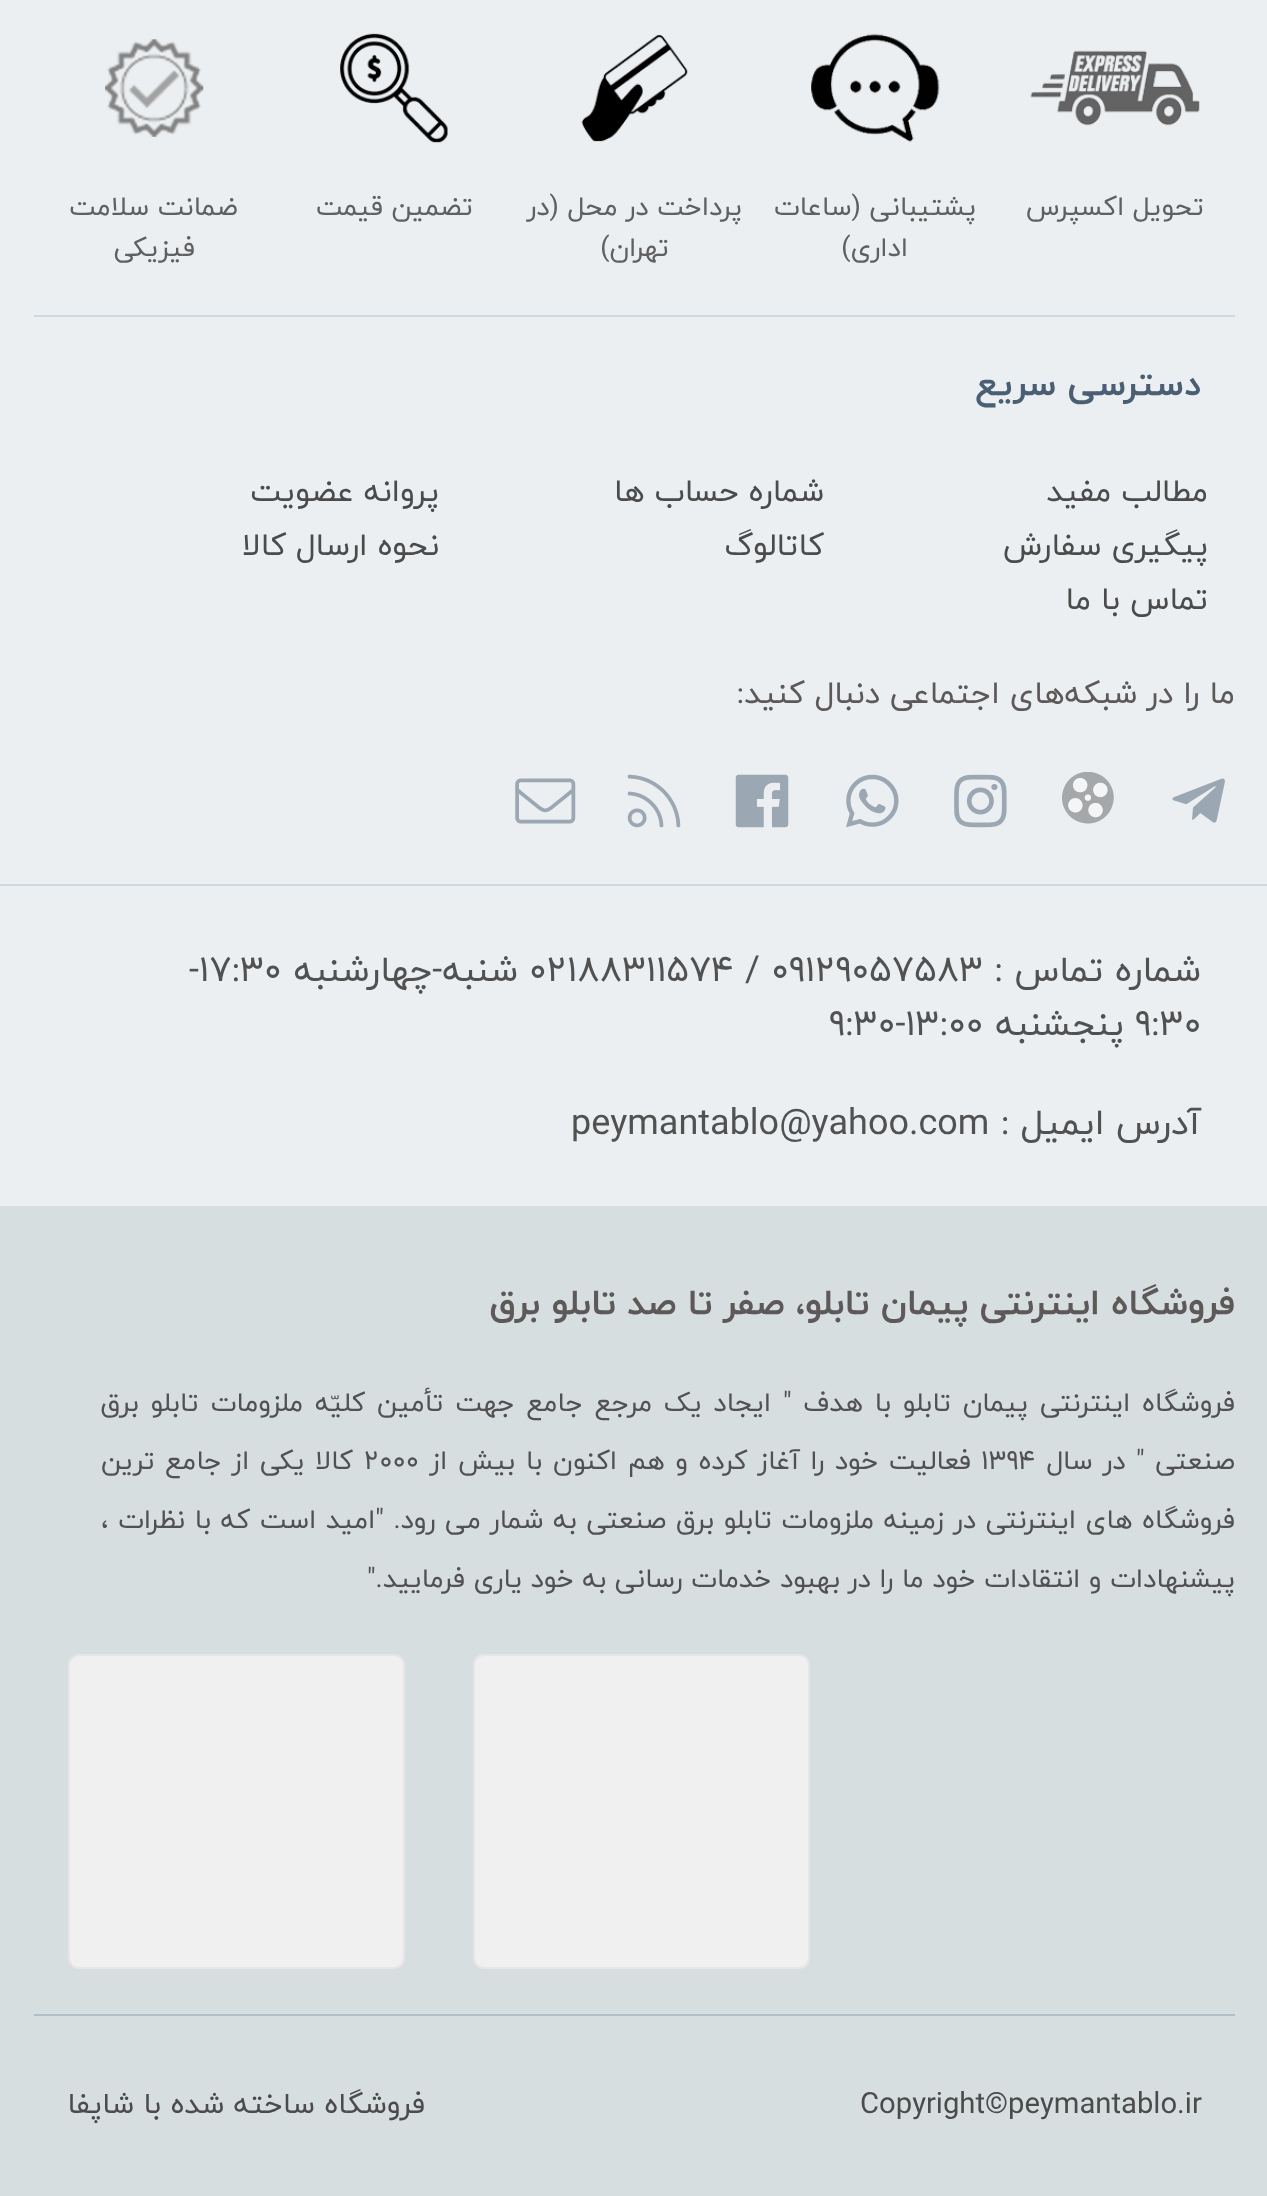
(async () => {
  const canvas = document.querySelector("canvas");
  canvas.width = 1267;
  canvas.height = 2196;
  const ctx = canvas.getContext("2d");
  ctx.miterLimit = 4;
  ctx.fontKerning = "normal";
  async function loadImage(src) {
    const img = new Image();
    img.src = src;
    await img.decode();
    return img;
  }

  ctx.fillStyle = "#eceff1";
  ctx.fillRect(0, 0, 1267, 2196);
  ctx.fillStyle = "#cfd8dc";
  ctx.fillRect(34, 315, 1201, 2);
  ctx.drawImage(await loadImage("img/1.png"), 1030, 50, 170, 76);
  ctx.drawImage(await loadImage("img/2.png"), 811, 33, 129, 110);
  ctx.drawImage(await loadImage("img/3.png"), 581, 34, 107, 108);
  ctx.drawImage(await loadImage("img/4.png"), 340, 33, 108, 110);
  ctx.drawImage(await loadImage("img/5.png"), 105, 39, 99, 98);
  ctx.fillRect(0, 884, 1267, 2);
  ctx.drawImage(await loadImage("img/6.png"), 1172, 778, 53, 45);
  ctx.drawImage(await loadImage("img/7.png"), 1062, 772, 52, 52);
  ctx.drawImage(await loadImage("img/8.png"), 954, 774, 53, 54);
  ctx.drawImage(await loadImage("img/9.png"), 846, 774, 53, 54);
  ctx.drawImage(await loadImage("img/10.png"), 735, 774, 54, 54);
  ctx.drawImage(await loadImage("img/11.png"), 627, 774, 54, 54);
  ctx.drawImage(await loadImage("img/12.png"), 515, 778, 61, 46);
  ctx.fillStyle = "#d7dee0";
  ctx.fillRect(0, 1206, 1267, 990);
  ctx.fillStyle = "#f0f0f0";
  ctx.beginPath();
  ctx.roundRect(474, 1655, 335, 313, 10);
  ctx.fill();
  ctx.strokeStyle = "#e5e5ea";
  ctx.lineWidth = 2;
  ctx.stroke();
  ctx.beginPath();
  ctx.roundRect(69, 1655, 335, 313, 10);
  ctx.fill();
  ctx.stroke();
  ctx.fillStyle = "#b0bec5";
  ctx.fillRect(34, 2014, 1201, 2);
  ctx.direction = "rtl";
  ctx.font = "27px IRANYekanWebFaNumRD";
  ctx.fillStyle = "#606060";
  for (const [text, x, y] of [
    ["تحویل اکسپرس", 1204, 215],
    ["پشتیبانی (ساعات", 976, 215],
    ["اداری)", 908, 256],
    ["پرداخت در محل (در", 742, 215],
    ["تهران)", 669, 256],
    ["تضمین قیمت", 473, 215],
    ["ضمانت سلامت", 238, 215],
    ["فیزیکی", 195, 256],
  ]) {
    ctx.fillText(text, x, y);
  }
  ctx.font = "bold 36px IRANYekanWebFaNumRD";
  ctx.fillStyle = "#4a5f73";
  ctx.fillText("دسترسی سریع", 1201, 395);
  ctx.font = "31.5px IRANYekanWebFaNumRD";
  ctx.fillStyle = "#4b4b4b";
  for (const [text, x, y] of [
    ["مطالب مفید", 1208, 501],
    ["شماره حساب ها", 824, 501],
    ["پروانه عضویت", 439, 501],
    ["پیگیری سفارش", 1208, 555],
    ["کاتالوگ", 824, 555],
    ["نحوه ارسال کالا", 439, 555],
    ["تماس با ما", 1208, 609],
  ]) {
    ctx.fillText(text, x, y);
  }
  ctx.fillStyle = "#5d5959";
  ctx.fillText("ما را در شبکه‌های اجتماعی دنبال کنید:", 1235, 703);
  ctx.font = "36px IRANYekanWebFaNumRD";
  ctx.fillStyle = "#515151";
  ctx.fillText("شماره تماس :", 1201, 981);
  ctx.direction = "ltr";
  ctx.fillText("02188311574 / 09129057583", 529, 981);
  ctx.direction = "rtl";
  ctx.fillText("شنبه-چهارشنبه", 518, 981);
  ctx.direction = "ltr";
  ctx.fillText("-17:30", 189, 981);
  ctx.fillText("9:30", 1135, 1035);
  ctx.direction = "rtl";
  ctx.fillText("پنجشنبه", 1124, 1035);
  ctx.direction = "ltr";
  ctx.fillText("9:30-13:00", 829, 1035);
  ctx.direction = "rtl";
  ctx.fillText("آدرس ایمیل :", 1201, 1134);
  ctx.direction = "ltr";
  ctx.fillText("peymantablo@yahoo.com", 571, 1134);
  ctx.direction = "rtl";
  ctx.font = "bold 36px IRANYekanWebFaNumRD";
  ctx.fillStyle = "#5d5959";
  ctx.fillText("فروشگاه اینترنتی پیمان تابلو، صفر تا صد تابلو برق", 1235, 1314);
  ctx.wordSpacing = "3.25px";
  ctx.font = "27px IRANYekanWebFaNumRD";
  ctx.fillStyle = "#515151";
  ctx.fillText("فروشگاه اینترنتی پیمان تابلو با هدف \" ایجاد یک مرجع جامع جهت تأمین کلیّه ملزومات تابلو برق", 1235, 1411);
  ctx.wordSpacing = "2.1px";
  ctx.fillText("صنعتی \" در سال", 1235, 1469);
  ctx.wordSpacing = "0px";
  ctx.direction = "ltr";
  ctx.fillText("1394", 981, 1469);
  ctx.wordSpacing = "2.1px";
  ctx.direction = "rtl";
  ctx.fillText("فعالیت خود را آغاز کرده و هم اکنون با بیش از", 971, 1469);
  ctx.wordSpacing = "0px";
  ctx.direction = "ltr";
  ctx.fillText("2000", 364, 1469);
  ctx.wordSpacing = "2.1px";
  ctx.direction = "rtl";
  ctx.fillText("کالا یکی از جامع ترین", 353, 1469);
  ctx.wordSpacing = "1px";
  ctx.fillText("فروشگاه های اینترنتی در زمینه ملزومات تابلو برق صنعتی به شمار می رود. \"امید است که با نظرات ،", 1235, 1528);
  ctx.wordSpacing = "0px";
  ctx.fillText("پیشنهادات و انتقادات خود ما را در بهبود خدمات رسانی به خود یاری فرمایید.\"", 1235, 1587);
  ctx.direction = "ltr";
  ctx.font = "29.25px IRANYekanWebFaNumRD";
  ctx.fillStyle = "#4b4b4b";
  ctx.fillText("Copyright©peymantablo.ir", 860, 2113);
  ctx.direction = "rtl";
  ctx.fillText("فروشگاه ساخته شده با شاپفا", 425, 2113);
})();
